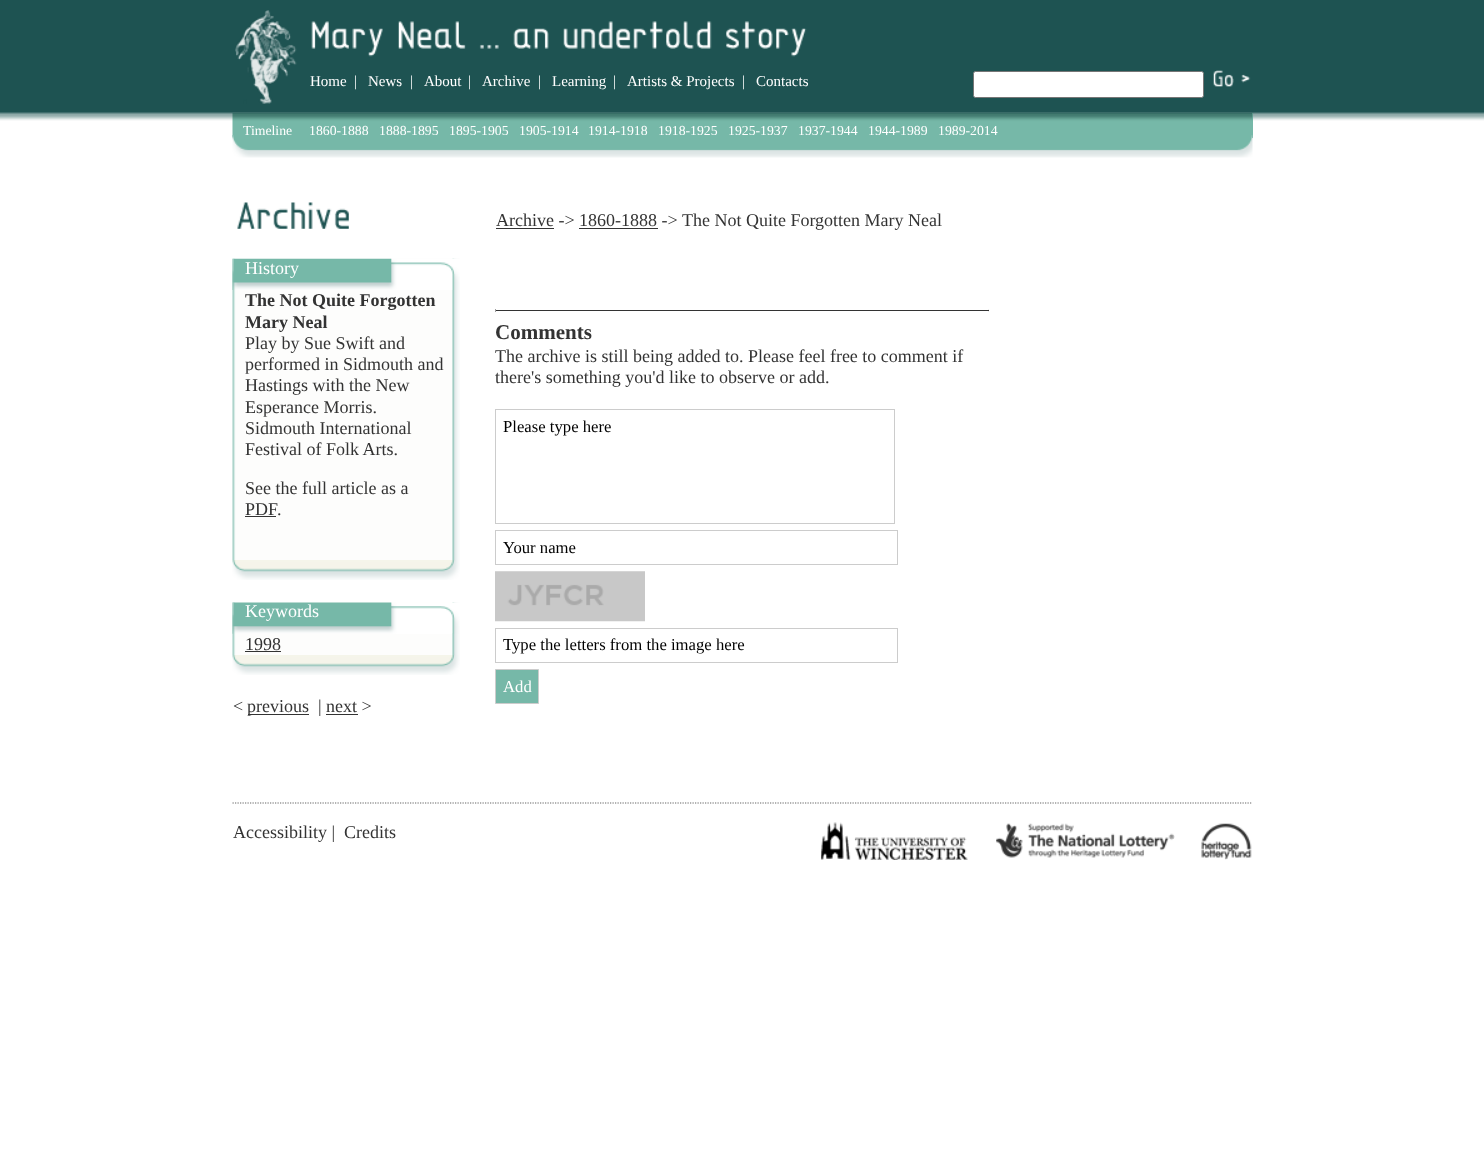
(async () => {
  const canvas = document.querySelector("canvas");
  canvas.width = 1484;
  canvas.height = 1156;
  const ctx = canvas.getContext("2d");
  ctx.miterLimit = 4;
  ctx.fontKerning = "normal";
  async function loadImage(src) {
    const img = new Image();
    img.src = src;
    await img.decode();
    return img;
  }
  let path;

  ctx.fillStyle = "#ffffff";
  ctx.fillRect(0, 0, 1484, 1156);
  ctx.drawImage(await loadImage("img/1.png"), 0, 0, 1484, 121);
  ctx.drawImage(await loadImage("img/2.png"), 235, 10, 62, 94);
  ctx.drawImage(await loadImage("img/3.png"), 311, 21, 496, 36);
  ctx.beginPath();
  ctx.roundRect(973.5, 71.5, 230, 26, 2);
  ctx.fill();
  ctx.strokeStyle = "#767676";
  ctx.stroke();
  ctx.drawImage(await loadImage("img/4.png"), 1213, 70, 38, 17);
  ctx.fillStyle = "#76b8a8";
  ctx.fillRect(1252, 113, 1, 25);
  ctx.drawImage(await loadImage("img/5.png"), 232, 112, 1021, 26);
  ctx.drawImage(await loadImage("img/7.png"), 237, 202, 112, 27);
  ctx.fillStyle = "#333333";
  ctx.fillRect(496, 228, 58, 1);
  ctx.fillRect(579, 228, 79, 1);
  ctx.drawImage(await loadImage("img/8.png"), 232, 258, 228, 302);
  ctx.drawImage(await loadImage("img/9.png"), 232, 258, 228, 32);
  ctx.fillRect(245, 516, 31, 1);
  ctx.drawImage(await loadImage("img/10.png"), 232, 560, 228, 20);
  ctx.drawImage(await loadImage("img/11.png"), 232, 602, 228, 53);
  ctx.drawImage(await loadImage("img/12.png"), 232, 602, 228, 32);
  ctx.fillRect(245, 651, 36, 1);
  ctx.drawImage(await loadImage("img/10.png"), 232, 655, 228, 20);
  for (const [x, y, w, h, color] of [
    [248, 714, 61, 1, "#333333"],
    [326, 714, 32, 1, "#333333"],
    [988, 309, 1, 3, "#eeeeee"],
    [495, 310, 494, 1, "#333333"],
    [495, 309, 1, 3, "#9f9f9f"],
  ]) {
    ctx.fillStyle = color;
    ctx.fillRect(x, y, w, h);
  }
  ctx.strokeStyle = "#cccccc";
  ctx.strokeRect(495.5, 409.5, 399, 114);
  ctx.strokeRect(495.5, 530.5, 402, 34);
  ctx.drawImage(await loadImage("img/13.png"), 495, 571, 150, 51);
  ctx.strokeRect(495.5, 628.5, 402, 34);
  ctx.fillStyle = "#76b8a8";
  ctx.beginPath();
  ctx.rect(495.5, 669.5, 43, 34);
  ctx.fill();
  ctx.stroke();
  path = new Path2D("M232.5 803H1252.5");
  ctx.strokeStyle = "#666666";
  ctx.lineWidth = 1.2;
  ctx.setLineDash([1.25, 1.25]);
  ctx.stroke(path);
  ctx.drawImage(await loadImage("img/14.png"), 821, 822, 147, 38);
  ctx.drawImage(await loadImage("img/15.png"), 996, 823, 179, 35);
  ctx.drawImage(await loadImage("img/16.png"), 1201, 823, 51, 37);
  ctx.font = "15px Liberation Serif";
  ctx.fillStyle = "#ffffff";
  for (const [text, x, y] of [
    ["Home", 310, 86],
    ["|", 354, 86],
    ["News", 368, 86],
    ["|", 410, 86],
    ["About", 424, 86],
    ["|", 468, 86],
    ["Archive", 482, 86],
    ["|", 538, 86],
    ["Learning", 552, 86],
    ["|", 613, 86],
    ["Artists & Projects", 627, 86],
    ["|", 742, 86],
    ["Contacts", 756, 86],
  ]) {
    ctx.fillText(text, x, y);
  }
  ctx.font = "13.75px Liberation Serif";
  for (const [text, x, y] of [
    ["Timeline", 243, 135],
    ["1860-1888", 309, 135],
    ["1888-1895", 379, 135],
    ["1895-1905", 449, 135],
    ["1905-1914", 519, 135],
    ["1914-1918", 588, 135],
    ["1918-1925", 658, 135],
    ["1925-1937", 728, 135],
    ["1937-1944", 798, 135],
    ["1944-1989", 868, 135],
    ["1989-2014", 938, 135],
  ]) {
    ctx.fillText(text, x, y);
  }
  ctx.drawImage(await loadImage("img/6.png"), 232, 135, 1021, 23);
  ctx.font = "18px Liberation Serif";
  ctx.fillStyle = "#333333";
  ctx.fillText("Archive -> 1860-1888 -> The Not Quite Forgotten Mary Neal", 496, 226);
  ctx.fillStyle = "#ffffff";
  ctx.fillText("History", 245, 274);
  ctx.font = "bold 18px Liberation Serif";
  ctx.fillStyle = "#333333";
  ctx.fillText("The Not Quite Forgotten", 245, 306);
  ctx.fillText("Mary Neal", 245, 328);
  ctx.font = "18px Liberation Serif";
  for (const [text, x, y] of [
    ["Play by Sue Swift and", 245, 349],
    ["performed in Sidmouth and", 245, 370],
    ["Hastings with the New", 245, 391],
    ["Esperance Morris.", 245, 413],
    ["Sidmouth International", 245, 434],
    ["Festival of Folk Arts.", 245, 455],
    ["See the full article as a", 245, 494],
    ["PDF", 245, 515],
    [".", 277, 515],
  ]) {
    ctx.fillText(text, x, y);
  }
  ctx.fillStyle = "#ffffff";
  ctx.fillText("Keywords", 245, 617);
  ctx.fillStyle = "#333333";
  for (const [text, x, y] of [
    ["1998", 245, 650],
    ["<", 233, 712],
    ["previous", 247, 712],
    ["| next >", 318, 712],
  ]) {
    ctx.fillText(text, x, y);
  }
  ctx.font = "bold 21px Liberation Serif";
  ctx.fillText("Comments", 495, 339);
  ctx.font = "18px Liberation Serif";
  ctx.fillText("The archive is still being added to. Please feel free to comment if", 495, 362);
  ctx.fillText("there's something you'd like to observe or add.", 495, 383);
  ctx.font = "16.7px Liberation Serif";
  ctx.fillStyle = "#000000";
  ctx.fillText("Please type here", 503, 432);
  ctx.fillText("Your name", 503, 553);
  ctx.save();
  ctx.beginPath();
  ctx.rect(503, 635, 387, 20);
  ctx.clip();
  ctx.fillText("Type the letters from the image here", 503, 650);
  ctx.restore();
  ctx.fillStyle = "#ffffff";
  ctx.fillText("Add", 503, 692);
  ctx.font = "18px Liberation Serif";
  ctx.fillStyle = "#333333";
  ctx.fillText("Accessibility |", 233, 838);
  ctx.fillText("Credits", 344, 838);
})();
